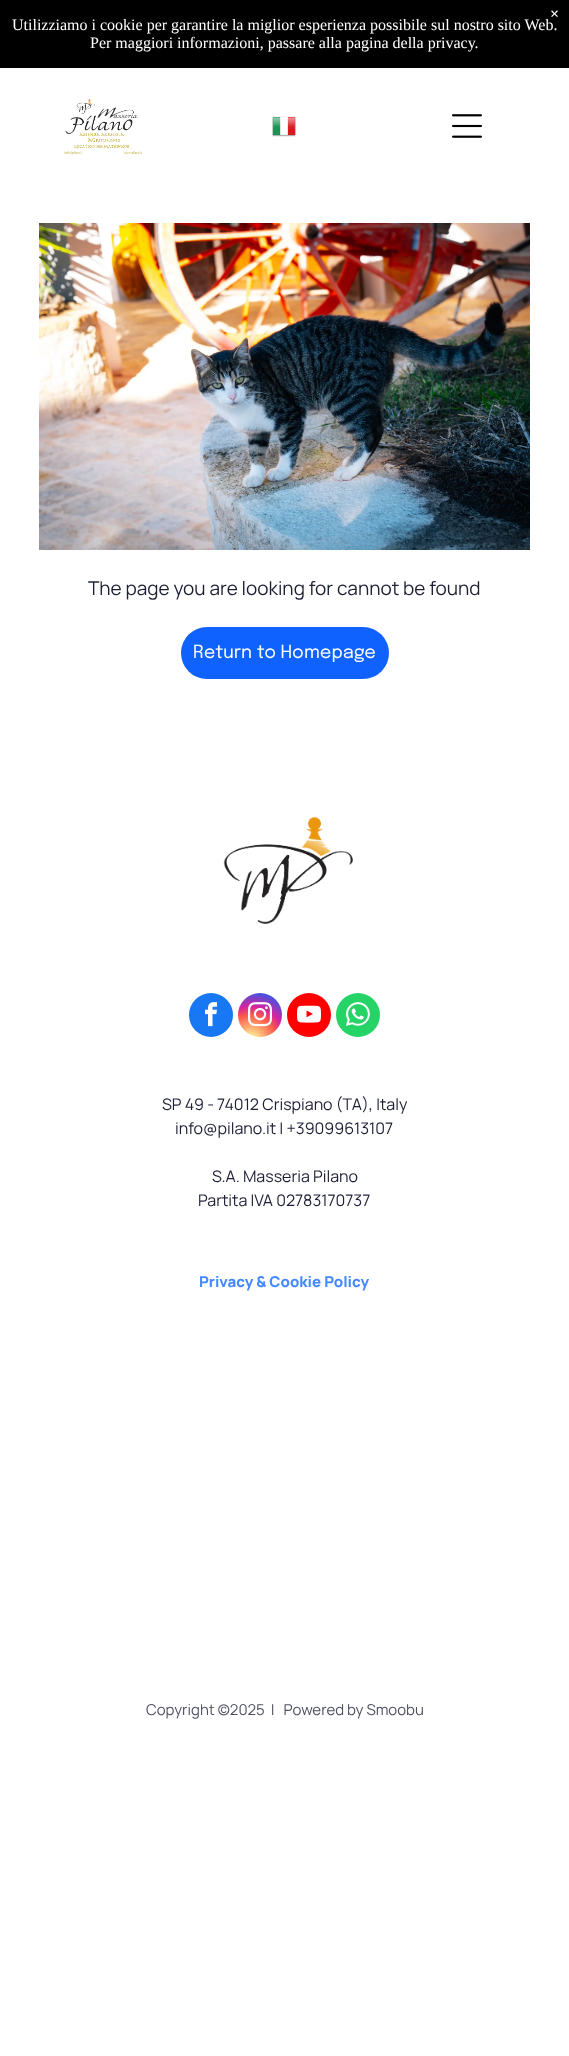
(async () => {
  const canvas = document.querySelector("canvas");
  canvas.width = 569;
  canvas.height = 2056;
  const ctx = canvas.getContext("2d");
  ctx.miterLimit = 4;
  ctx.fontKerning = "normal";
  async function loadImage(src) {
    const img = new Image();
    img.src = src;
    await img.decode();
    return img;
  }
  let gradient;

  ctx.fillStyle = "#ffffff";
  ctx.fillRect(0, 0, 569, 2056);
  ctx.fillStyle = "#000000";
  ctx.fillRect(0, 0, 569, 68);
  ctx.drawImage(await loadImage("img/1.png"), 64, 99, 78, 56);
  ctx.drawImage(await loadImage("img/2.png"), 272, 116, 24, 21);
  ctx.drawImage(await loadImage("img/3.png"), 452, 114, 30, 24);
  ctx.drawImage(await loadImage("img/4.png"), 39, 223, 491, 327);
  ctx.fillStyle = "#0f62fe";
  ctx.beginPath();
  ctx.roundRect(181, 627, 208, 52, 26);
  ctx.fill();
  ctx.drawImage(await loadImage("img/5.png"), 223, 816, 130, 108);
  ctx.fillStyle = "#1877f2";
  ctx.beginPath();
  ctx.arc(211, 1015, 22, 0, Math.PI * 2);
  ctx.fill();
  ctx.drawImage(await loadImage("img/6.png"), 205, 1002, 13, 25);
  gradient = ctx.createRadialGradient(251, 1040, 0, 251, 1040, 56);
  gradient.addColorStop(0, "#fdf497");
  gradient.addColorStop(0.05, "#fdf497");
  gradient.addColorStop(0.45, "#fd5949");
  gradient.addColorStop(0.6, "#d6249f");
  gradient.addColorStop(0.9, "#285aeb");
  ctx.fillStyle = gradient;
  ctx.beginPath();
  ctx.arc(260, 1015, 22, 0, Math.PI * 2);
  ctx.fill();
  ctx.drawImage(await loadImage("img/7.png"), 248, 1002, 24, 25);
  ctx.fillStyle = "#ff0000";
  ctx.beginPath();
  ctx.arc(309, 1015, 22, 0, Math.PI * 2);
  ctx.fill();
  ctx.drawImage(await loadImage("img/8.png"), 297, 1005, 25, 18);
  ctx.fillStyle = "#25d366";
  ctx.beginPath();
  ctx.arc(358, 1015, 22, 0, Math.PI * 2);
  ctx.fill();
  ctx.drawImage(await loadImage("img/9.png"), 346, 1002, 24, 24);
  ctx.font = "bold 16px Liberation Serif";
  ctx.fillStyle = "#ffffff";
  ctx.fillText("×", 550, 19);
  ctx.font = "16px Liberation Serif";
  ctx.fillText("Utilizziamo i cookie per garantire la miglior esperienza possibile sul nostro sito Web.", 12, 30);
  ctx.fillText("Per maggiori informazioni, passare alla pagina della privacy.", 90, 48);
  ctx.font = "19px Manrope";
  ctx.fillStyle = "#1d2035";
  ctx.fillText("The page you are looking for cannot be found", 88, 595);
  ctx.font = "18px Epilogue";
  ctx.fillStyle = "#ffffff";
  ctx.fillText("Return to Homepage", 193, 658);
  ctx.font = "16px Manrope";
  ctx.fillStyle = "#1d2035";
  for (const [text, x, y] of [
    ["SP 49 - 74012 Crispiano (TA), Italy", 162, 1110],
    ["info@pilano.it | +39099613107", 175, 1134],
    ["S.A. Masseria Pilano", 212, 1182],
    ["Partita IVA 02783170737", 198, 1206],
  ]) {
    ctx.fillText(text, x, y);
  }
  ctx.font = "800 15px Manrope";
  ctx.fillStyle = "#4589ff";
  ctx.fillText("Privacy & Cookie Policy", 199, 1287);
  ctx.font = "15px Manrope";
  ctx.fillStyle = "#4f5161";
  ctx.fillText("Copyright ©2025  |   Powered by Smoobu", 146, 1715);
})();
